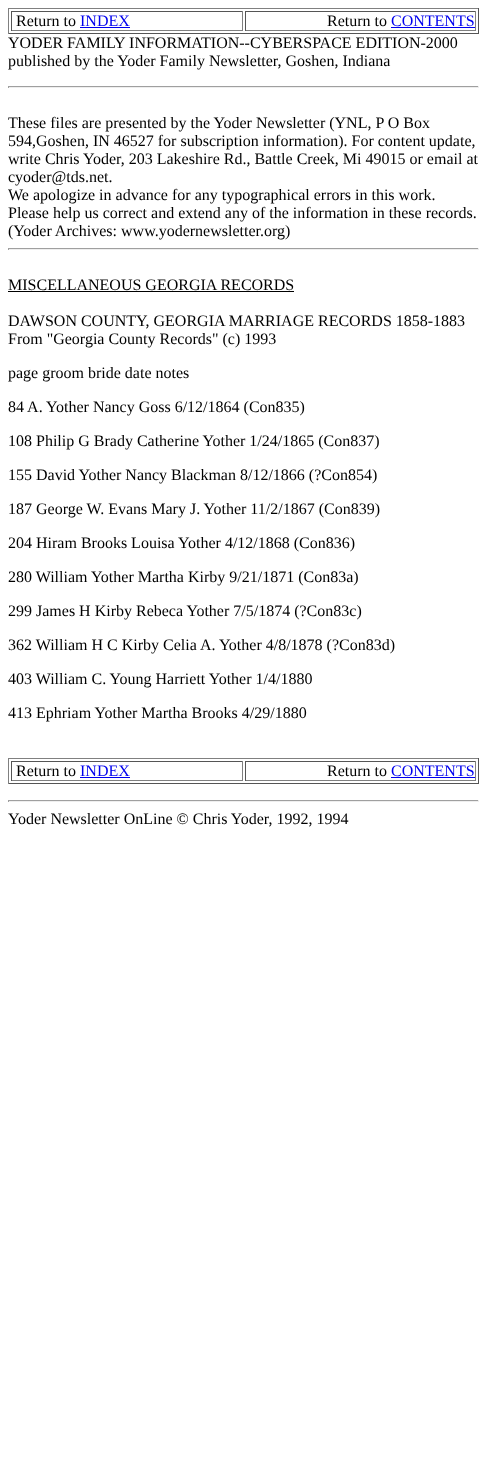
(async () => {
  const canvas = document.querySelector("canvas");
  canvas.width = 487;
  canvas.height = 1469;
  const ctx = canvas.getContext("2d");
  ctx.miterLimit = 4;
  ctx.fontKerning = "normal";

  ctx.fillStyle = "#ffffff";
  ctx.fillRect(0, 0, 487, 1469);
  for (const [x, y, w, h, color] of [
    [8, 8, 471, 1, "#808080"],
    [478, 8, 1, 26, "#555555"],
    [8, 33, 471, 1, "#555555"],
    [8, 8, 1, 26, "#808080"],
    [11, 11, 232, 1, "#555555"],
    [242, 11, 1, 20, "#808080"],
    [11, 30, 232, 1, "#808080"],
    [11, 11, 1, 20, "#555555"],
    [80, 27, 50, 1, "#0000ee"],
    [245, 11, 231, 1, "#555555"],
    [475, 11, 1, 20, "#808080"],
    [245, 30, 231, 1, "#808080"],
    [245, 11, 1, 20, "#555555"],
    [391, 27, 84, 1, "#0000ee"],
    [8, 86, 471, 1, "#9f9f9f"],
    [478, 86, 1, 2, "#eeeeee"],
    [8, 87, 471, 1, "#eeeeee"],
    [8, 86, 1, 2, "#9f9f9f"],
    [8, 248, 471, 1, "#9f9f9f"],
    [478, 248, 1, 2, "#eeeeee"],
    [8, 249, 471, 1, "#eeeeee"],
    [8, 248, 1, 2, "#9f9f9f"],
    [8, 291, 286, 1, "#000000"],
    [8, 758, 471, 1, "#808080"],
    [478, 758, 1, 26, "#555555"],
    [8, 783, 471, 1, "#555555"],
    [8, 758, 1, 26, "#808080"],
    [11, 761, 232, 1, "#555555"],
    [242, 761, 1, 20, "#808080"],
    [11, 780, 232, 1, "#808080"],
    [11, 761, 1, 20, "#555555"],
    [80, 777, 50, 1, "#0000ee"],
    [245, 761, 231, 1, "#555555"],
    [475, 761, 1, 20, "#808080"],
    [245, 780, 231, 1, "#808080"],
    [245, 761, 1, 20, "#555555"],
    [391, 777, 84, 1, "#0000ee"],
    [8, 800, 471, 1, "#9f9f9f"],
    [478, 800, 1, 2, "#eeeeee"],
    [8, 801, 471, 1, "#eeeeee"],
    [8, 800, 1, 2, "#9f9f9f"],
  ]) {
    ctx.fillStyle = color;
    ctx.fillRect(x, y, w, h);
  }
  ctx.font = "16px Liberation Serif";
  ctx.fillStyle = "#000000";
  ctx.fillText("Return to", 16, 26);
  ctx.fillStyle = "#0000ee";
  ctx.fillText("INDEX", 80, 26);
  ctx.fillStyle = "#000000";
  ctx.fillText("Return to", 327, 26);
  ctx.fillStyle = "#0000ee";
  ctx.fillText("CONTENTS", 391, 26);
  ctx.fillStyle = "#000000";
  for (const [text, x, y] of [
    ["YODER FAMILY INFORMATION--CYBERSPACE EDITION-2000", 8, 48],
    ["published by the Yoder Family Newsletter, Goshen, Indiana", 8, 66],
    ["These files are presented by the Yoder Newsletter (YNL, P O Box", 8, 128],
    ["594,Goshen, IN 46527 for subscription information). For content update,", 8, 146],
    ["write Chris Yoder, 203 Lakeshire Rd., Battle Creek, Mi 49015 or email at", 8, 164],
    ["cyoder@tds.net.", 8, 182],
    ["We apologize in advance for any typographical errors in this work.", 8, 200],
    ["Please help us correct and extend any of the information in these records.", 8, 218],
    ["(Yoder Archives: www.yodernewsletter.org)", 8, 236],
    ["MISCELLANEOUS GEORGIA RECORDS", 8, 290],
    ["DAWSON COUNTY, GEORGIA MARRIAGE RECORDS 1858-1883", 8, 326],
    ["From \"Georgia County Records\" (c) 1993", 8, 344],
    ["page groom bride date notes", 8, 378],
    ["84 A. Yother Nancy Goss 6/12/1864 (Con835)", 8, 412],
    ["108 Philip G Brady Catherine Yother 1/24/1865 (Con837)", 8, 446],
    ["155 David Yother Nancy Blackman 8/12/1866 (?Con854)", 8, 480],
    ["187 George W. Evans Mary J. Yother 11/2/1867 (Con839)", 8, 514],
    ["204 Hiram Brooks Louisa Yother 4/12/1868 (Con836)", 8, 548],
    ["280 William Yother Martha Kirby 9/21/1871 (Con83a)", 8, 582],
    ["299 James H Kirby Rebeca Yother 7/5/1874 (?Con83c)", 8, 616],
    ["362 William H C Kirby Celia A. Yother 4/8/1878 (?Con83d)", 8, 650],
    ["403 William C. Young Harriett Yother 1/4/1880", 8, 684],
    ["413 Ephriam Yother Martha Brooks 4/29/1880", 8, 718],
    ["Return to", 16, 776],
  ]) {
    ctx.fillText(text, x, y);
  }
  ctx.fillStyle = "#0000ee";
  ctx.fillText("INDEX", 80, 776);
  ctx.fillStyle = "#000000";
  ctx.fillText("Return to", 327, 776);
  ctx.fillStyle = "#0000ee";
  ctx.fillText("CONTENTS", 391, 776);
  ctx.fillStyle = "#000000";
  ctx.fillText("Yoder Newsletter OnLine © Chris Yoder, 1992, 1994", 8, 824);
})();
